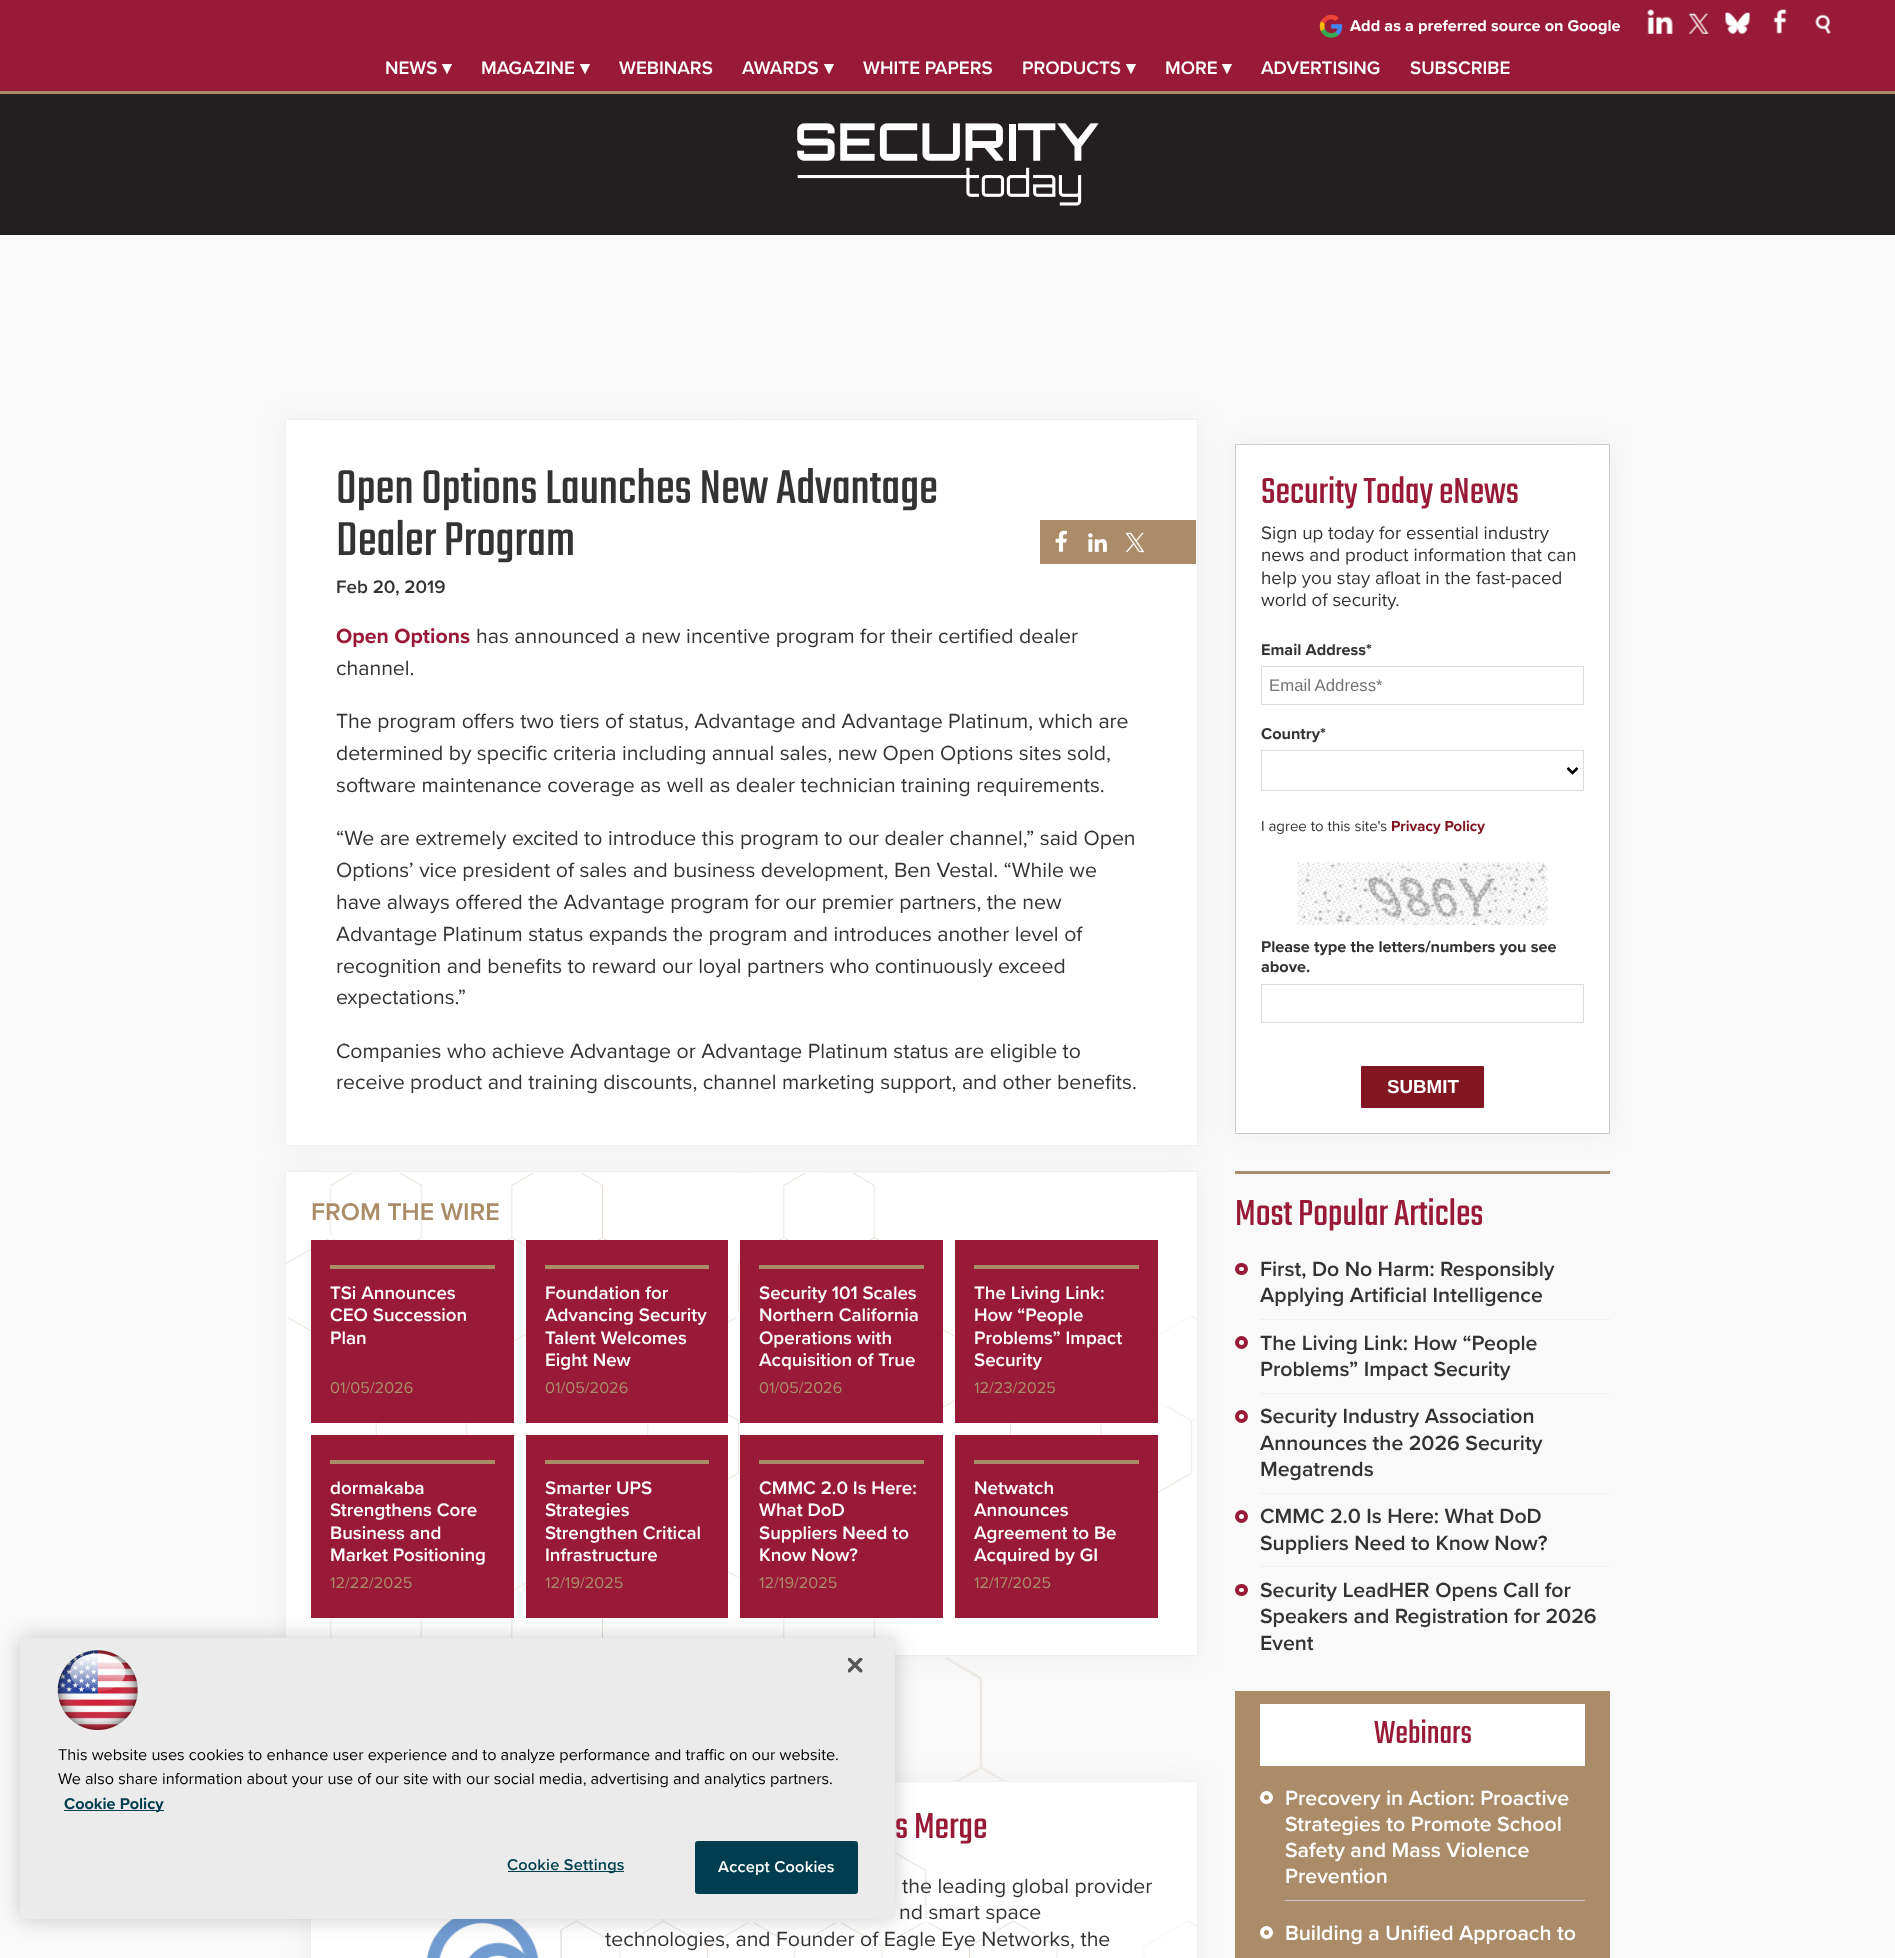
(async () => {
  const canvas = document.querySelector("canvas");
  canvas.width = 1895;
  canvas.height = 1958;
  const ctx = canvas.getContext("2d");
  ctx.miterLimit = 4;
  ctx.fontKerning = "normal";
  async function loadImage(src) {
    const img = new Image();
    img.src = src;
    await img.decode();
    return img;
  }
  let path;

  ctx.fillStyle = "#f9f9f9";
  ctx.fillRect(0, 0, 1895, 1958);
  ctx.fillStyle = "#991a37";
  ctx.fillRect(0, 0, 1895, 91);
  ctx.drawImage(await loadImage("img/1.png"), 1319, 14, 24, 24);
  ctx.drawImage(await loadImage("img/2.png"), 1647, 9, 26, 25);
  ctx.drawImage(await loadImage("img/3.png"), 1688, 13, 21, 21);
  ctx.drawImage(await loadImage("img/4.png"), 1725, 12, 26, 22);
  ctx.drawImage(await loadImage("img/5.png"), 1773, 9, 14, 25);
  ctx.drawImage(await loadImage("img/6.png"), 1815, 14, 16, 20);
  ctx.fillStyle = "#ab8c68";
  ctx.fillRect(0, 91, 1895, 3);
  ctx.fillStyle = "#231f20";
  ctx.fillRect(0, 94, 1895, 141);
  ctx.drawImage(await loadImage("img/7.png"), 797, 123, 302, 83);
  ctx.drawImage(await loadImage("img/12.png"), 943, 1657, 63, 124);
  ctx.fillStyle = "#ab8c68";
  ctx.fillRect(1235, 1171, 375, 3);
  ctx.save();
  ctx.beginPath();
  ctx.rect(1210, 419, 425, 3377);
  ctx.clip();
  ctx.fillStyle = "#efefef";
  ctx.filter = "blur(12.5px)";
  ctx.beginPath();
  ctx.rect(1235, 444, 375, 690);
  ctx.fill();
  ctx.filter = "none";
  ctx.restore();
  ctx.fillStyle = "#ffffff";
  ctx.beginPath();
  ctx.rect(1235.5, 444.5, 374, 689);
  ctx.fill();
  ctx.strokeStyle = "#cccccc";
  ctx.stroke();
  ctx.fillStyle = "#ab8c68";
  ctx.fillRect(1235, 1691, 375, 267);
  ctx.fillStyle = "#efefef";
  ctx.filter = "blur(12.5px)";
  ctx.beginPath();
  ctx.rect(285, 1171, 913, 485);
  ctx.fill();
  ctx.filter = "none";
  ctx.fillStyle = "#ffffff";
  ctx.fillRect(286, 1172, 911, 483);
  ctx.drawImage(await loadImage("img/11.png"), 286, 1172, 911, 485);
  ctx.strokeStyle = "#efefef";
  ctx.strokeRect(285.5, 1171.5, 912, 484);
  ctx.fillStyle = "#efefef";
  ctx.filter = "blur(12.5px)";
  ctx.beginPath();
  ctx.rect(285, 419, 913, 727);
  ctx.fill();
  ctx.filter = "none";
  ctx.fillStyle = "#ffffff";
  ctx.beginPath();
  ctx.rect(285.5, 419.5, 912, 726);
  ctx.fill();
  ctx.stroke();
  ctx.fillStyle = "#ab8c68";
  ctx.fillRect(1040, 520, 156, 44);
  ctx.drawImage(await loadImage("img/8.png"), 1055, 530, 12, 22);
  ctx.drawImage(await loadImage("img/9.png"), 1088, 533, 19, 19);
  ctx.drawImage(await loadImage("img/10.png"), 1125, 532, 20, 21);
  for (const [x, y, w, h, color] of [
    [311, 1240, 203, 183, "#991a37"],
    [330, 1265, 165, 4, "#ab8c68"],
    [526, 1240, 202, 183, "#991a37"],
    [545, 1265, 164, 4, "#ab8c68"],
    [740, 1240, 203, 183, "#991a37"],
    [759, 1265, 165, 4, "#ab8c68"],
    [955, 1240, 203, 183, "#991a37"],
    [974, 1265, 165, 4, "#ab8c68"],
    [311, 1435, 203, 183, "#991a37"],
    [330, 1460, 165, 4, "#ab8c68"],
    [526, 1435, 202, 183, "#991a37"],
    [545, 1460, 164, 4, "#ab8c68"],
    [740, 1435, 203, 183, "#991a37"],
    [759, 1460, 165, 4, "#ab8c68"],
    [955, 1435, 203, 183, "#991a37"],
    [974, 1460, 165, 4, "#ab8c68"],
  ]) {
    ctx.fillStyle = color;
    ctx.fillRect(x, y, w, h);
  }
  ctx.fillStyle = "#efefef";
  ctx.filter = "blur(12.5px)";
  ctx.beginPath();
  ctx.rect(310, 1781, 888, 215);
  ctx.fill();
  ctx.filter = "none";
  ctx.fillStyle = "#ffffff";
  ctx.fillRect(311, 1782, 886, 176);
  ctx.drawImage(await loadImage("img/13.png"), 311, 1852, 886, 106);
  ctx.strokeRect(310.5, 1781.5, 887, 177);
  ctx.drawImage(await loadImage("img/14.png"), 311, 1919, 251, 39);
  ctx.strokeStyle = "#dcdcdc";
  ctx.strokeRect(1261.5, 666.5, 322, 38);
  ctx.strokeRect(1261.5, 750.5, 322, 40);
  path = new Path2D("M1567.5 768L1572.5 773L1577.5 768");
  ctx.strokeStyle = "#000000";
  ctx.lineWidth = 2.5;
  ctx.stroke(path);
  ctx.drawImage(await loadImage("img/15.png"), 1297, 862, 251, 63);
  ctx.strokeStyle = "#dcdcdc";
  ctx.lineWidth = 1;
  ctx.strokeRect(1261.5, 984.5, 322, 38);
  ctx.fillStyle = "#811620";
  ctx.beginPath();
  ctx.roundRect(1361, 1066, 123, 42, 1);
  ctx.fill();
  ctx.fillStyle = "#efefef";
  ctx.fillRect(1260, 1319, 350, 1);
  ctx.fillStyle = "#ffffff";
  ctx.beginPath();
  ctx.roundRect(1237, 1265, 9, 8, 4);
  ctx.fill();
  ctx.strokeStyle = "#991a37";
  ctx.lineWidth = 4;
  ctx.stroke();
  ctx.fillStyle = "#efefef";
  ctx.fillRect(1260, 1393, 350, 1);
  ctx.fillStyle = "#ffffff";
  ctx.beginPath();
  ctx.arc(1241.5, 1342.5, 4.5, 0, Math.PI * 2);
  ctx.fill();
  ctx.stroke();
  ctx.fillStyle = "#efefef";
  ctx.fillRect(1260, 1493, 350, 1);
  ctx.fillStyle = "#ffffff";
  ctx.beginPath();
  ctx.arc(1241.5, 1416.5, 4.5, 0, Math.PI * 2);
  ctx.fill();
  ctx.stroke();
  ctx.fillStyle = "#efefef";
  ctx.fillRect(1260, 1566, 350, 1);
  ctx.fillStyle = "#ffffff";
  ctx.beginPath();
  ctx.arc(1241.5, 1516.5, 4.5, 0, Math.PI * 2);
  ctx.fill();
  ctx.stroke();
  ctx.beginPath();
  ctx.roundRect(1237, 1586, 9, 8, 4);
  ctx.fill();
  ctx.stroke();
  ctx.fillRect(1260, 1704, 325, 62);
  ctx.fillStyle = "#cccccc";
  ctx.fillRect(1285, 1900, 300, 1);
  ctx.beginPath();
  ctx.arc(1266.5, 1797.5, 4.5, 0, Math.PI * 2);
  ctx.strokeStyle = "#ffffff";
  ctx.stroke();
  ctx.beginPath();
  ctx.arc(1266.5, 1932.5, 4.5, 0, Math.PI * 2);
  ctx.stroke();
  ctx.fillStyle = "rgba(0, 0, 0, 0.2)";
  ctx.filter = "blur(11px)";
  ctx.beginPath();
  ctx.roundRect(20, 1638, 875, 281, 3);
  ctx.fill();
  ctx.filter = "none";
  ctx.fillStyle = "#ebebeb";
  ctx.beginPath();
  ctx.roundRect(20, 1638, 875, 281, 3);
  ctx.fill();
  ctx.drawImage(await loadImage("img/16.png"), 848, 1658, 15, 15);
  ctx.drawImage(await loadImage("img/17.png"), 57, 1650, 81, 80);
  ctx.fillStyle = "#003d4f";
  ctx.fillRect(64, 1810, 100, 1);
  ctx.fillRect(508, 1871, 116, 1);
  ctx.beginPath();
  ctx.roundRect(695.5, 1841.5, 162, 52, 2);
  ctx.fill();
  ctx.strokeStyle = "#003d4f";
  ctx.lineWidth = 1;
  ctx.stroke();
  ctx.font = "bold 16.25px Proxima Nova";
  ctx.fillStyle = "#ffffff";
  ctx.fillText("Add as a preferred source on Google", 1350, 31);
  ctx.font = "600 18.75px Proxima Nova";
  ctx.fillText("NEWS", 385, 74);
  ctx.font = "bold 18.75px DejaVu Sans";
  ctx.fillText("▾", 442, 74);
  ctx.font = "600 18.75px Proxima Nova";
  ctx.fillText("MAGAZINE", 481, 74);
  ctx.font = "bold 18.75px DejaVu Sans";
  ctx.fillText("▾", 580, 74);
  ctx.font = "600 18.75px Proxima Nova";
  ctx.fillText("WEBINARS", 619, 74);
  ctx.fillText("AWARDS", 742, 74);
  ctx.font = "bold 18.75px DejaVu Sans";
  ctx.fillText("▾", 824, 74);
  ctx.font = "600 18.75px Proxima Nova";
  ctx.fillText("WHITE PAPERS", 863, 74);
  ctx.fillText("PRODUCTS", 1022, 74);
  ctx.font = "bold 18.75px DejaVu Sans";
  ctx.fillText("▾", 1126, 74);
  ctx.font = "600 18.75px Proxima Nova";
  ctx.fillText("MORE", 1165, 74);
  ctx.font = "bold 18.75px DejaVu Sans";
  ctx.fillText("▾", 1222, 74);
  ctx.font = "600 18.75px Proxima Nova";
  ctx.fillText("ADVERTISING", 1261, 74);
  ctx.fillText("SUBSCRIBE", 1410, 74);
  ctx.font = "300 52.5px Teko";
  ctx.fillStyle = "#333333";
  ctx.fillText("Open Options Launches New Advantage", 336, 503);
  ctx.fillText("Dealer Program", 336, 555);
  ctx.font = "600 18.75px Proxima Nova";
  ctx.fillText("Feb 20, 2019", 336, 593);
  ctx.font = "bold 21.25px Proxima Nova";
  ctx.fillStyle = "#991a37";
  ctx.fillText("Open Options", 336, 643);
  ctx.font = "21.25px Proxima Nova";
  ctx.fillStyle = "#333333";
  for (const [text, x, y] of [
    ["has announced a new incentive program for their certified dealer", 476, 643],
    ["channel.", 336, 675],
    ["The program offers two tiers of status, Advantage and Advantage Platinum, which are", 336, 728],
    ["determined by specific criteria including annual sales, new Open Options sites sold,", 336, 760],
    ["software maintenance coverage as well as dealer technician training requirements.", 336, 792],
    ["“We are extremely excited to introduce this program to our dealer channel,” said Open", 336, 845],
    ["Options’ vice president of sales and business development, Ben Vestal. “While we", 336, 877],
    ["have always offered the Advantage program for our premier partners, the new", 336, 909],
    ["Advantage Platinum status expands the program and introduces another level of", 336, 941],
    ["recognition and benefits to reward our loyal partners who continuously exceed", 336, 973],
    ["expectations.”", 336, 1004],
    ["Companies who achieve Advantage or Advantage Platinum status are eligible to", 336, 1058],
    ["receive product and training discounts, channel marketing support, and other benefits.", 336, 1089],
  ]) {
    ctx.fillText(text, x, y);
  }
  ctx.font = "600 25px Proxima Nova";
  ctx.fillStyle = "#ab8c68";
  ctx.fillText("FROM THE WIRE", 311, 1220);
  ctx.font = "600 18.75px Proxima Nova";
  ctx.fillStyle = "#ffffff";
  for (const [text, x, y] of [
    ["TSi Announces", 330, 1299],
    ["CEO Succession", 330, 1321],
    ["Plan", 330, 1344],
  ]) {
    ctx.fillText(text, x, y);
  }
  ctx.font = "16.25px Proxima Nova";
  ctx.fillStyle = "#ab8c68";
  ctx.fillText("01/05/2026", 330, 1393);
  ctx.font = "600 18.75px Proxima Nova";
  ctx.fillStyle = "#ffffff";
  for (const [text, x, y] of [
    ["Foundation for", 545, 1299],
    ["Advancing Security", 545, 1321],
    ["Talent Welcomes", 545, 1344],
    ["Eight New", 545, 1366],
  ]) {
    ctx.fillText(text, x, y);
  }
  ctx.font = "16.25px Proxima Nova";
  ctx.fillStyle = "#ab8c68";
  ctx.fillText("01/05/2026", 545, 1393);
  ctx.font = "600 18.75px Proxima Nova";
  ctx.fillStyle = "#ffffff";
  for (const [text, x, y] of [
    ["Security 101 Scales", 759, 1299],
    ["Northern California", 759, 1321],
    ["Operations with", 759, 1344],
    ["Acquisition of True", 759, 1366],
  ]) {
    ctx.fillText(text, x, y);
  }
  ctx.font = "16.25px Proxima Nova";
  ctx.fillStyle = "#ab8c68";
  ctx.fillText("01/05/2026", 759, 1393);
  ctx.font = "600 18.75px Proxima Nova";
  ctx.fillStyle = "#ffffff";
  for (const [text, x, y] of [
    ["The Living Link:", 974, 1299],
    ["How “People", 974, 1321],
    ["Problems” Impact", 974, 1344],
    ["Security", 974, 1366],
  ]) {
    ctx.fillText(text, x, y);
  }
  ctx.font = "16.25px Proxima Nova";
  ctx.fillStyle = "#ab8c68";
  ctx.fillText("12/23/2025", 974, 1393);
  ctx.font = "600 18.75px Proxima Nova";
  ctx.fillStyle = "#ffffff";
  for (const [text, x, y] of [
    ["dormakaba", 330, 1494],
    ["Strengthens Core", 330, 1516],
    ["Business and", 330, 1539],
    ["Market Positioning", 330, 1561],
  ]) {
    ctx.fillText(text, x, y);
  }
  ctx.font = "16.25px Proxima Nova";
  ctx.fillStyle = "#ab8c68";
  ctx.fillText("12/22/2025", 330, 1588);
  ctx.font = "600 18.75px Proxima Nova";
  ctx.fillStyle = "#ffffff";
  for (const [text, x, y] of [
    ["Smarter UPS", 545, 1494],
    ["Strategies", 545, 1516],
    ["Strengthen Critical", 545, 1539],
    ["Infrastructure", 545, 1561],
  ]) {
    ctx.fillText(text, x, y);
  }
  ctx.font = "16.25px Proxima Nova";
  ctx.fillStyle = "#ab8c68";
  ctx.fillText("12/19/2025", 545, 1588);
  ctx.font = "600 18.75px Proxima Nova";
  ctx.fillStyle = "#ffffff";
  for (const [text, x, y] of [
    ["CMMC 2.0 Is Here:", 759, 1494],
    ["What DoD", 759, 1516],
    ["Suppliers Need to", 759, 1539],
    ["Know Now?", 759, 1561],
  ]) {
    ctx.fillText(text, x, y);
  }
  ctx.font = "16.25px Proxima Nova";
  ctx.fillStyle = "#ab8c68";
  ctx.fillText("12/19/2025", 759, 1588);
  ctx.font = "600 18.75px Proxima Nova";
  ctx.fillStyle = "#ffffff";
  for (const [text, x, y] of [
    ["Netwatch", 974, 1494],
    ["Announces", 974, 1516],
    ["Agreement to Be", 974, 1539],
    ["Acquired by GI", 974, 1561],
  ]) {
    ctx.fillText(text, x, y);
  }
  ctx.font = "16.25px Proxima Nova";
  ctx.fillStyle = "#ab8c68";
  ctx.fillText("12/17/2025", 974, 1588);
  ctx.font = "300 40px Teko";
  ctx.fillStyle = "#991a37";
  ctx.fillText("s Merge", 895, 1838);
  ctx.font = "21.25px Proxima Nova";
  ctx.fillStyle = "#333333";
  for (const [text, x, y] of [
    ["the leading global provider", 902, 1893],
    ["nd smart space", 899, 1919],
    ["technologies, and Founder of Eagle Eye Networks, the", 605, 1946],
  ]) {
    ctx.fillText(text, x, y);
  }
  ctx.font = "300 40px Teko";
  ctx.fillStyle = "#991a37";
  ctx.fillText("Security Today eNews", 1261, 503);
  ctx.font = "18.75px Proxima Nova";
  ctx.fillStyle = "#333333";
  for (const [text, x, y] of [
    ["Sign up today for essential industry", 1261, 539],
    ["news and product information that can", 1261, 561],
    ["help you stay afloat in the fast-paced", 1261, 584],
    ["world of security.", 1261, 606],
  ]) {
    ctx.fillText(text, x, y);
  }
  ctx.font = "bold 16.25px Proxima Nova";
  ctx.fillText("Email Address*", 1261, 655);
  ctx.font = "16.75px Liberation Sans";
  ctx.fillStyle = "#757575";
  ctx.fillText("Email Address*", 1269, 691);
  ctx.font = "bold 16.25px Proxima Nova";
  ctx.fillStyle = "#333333";
  ctx.fillText("Country*", 1261, 739);
  ctx.font = "15px Proxima Nova";
  ctx.fillText("I agree to this site's", 1261, 831);
  ctx.font = "bold 15px Proxima Nova";
  ctx.fillStyle = "#811620";
  ctx.fillText("Privacy Policy", 1391, 831);
  ctx.font = "bold 16.25px Proxima Nova";
  ctx.fillStyle = "#333333";
  ctx.fillText("Please type the letters/numbers you see", 1261, 952);
  ctx.fillText("above.", 1261, 972);
  ctx.font = "bold 18.75px Liberation Sans";
  ctx.fillStyle = "#ffffff";
  ctx.fillText("SUBMIT", 1387, 1093);
  ctx.font = "300 40px Teko";
  ctx.fillStyle = "#991a37";
  ctx.fillText("Most Popular Articles", 1235, 1225);
  ctx.font = "600 21.25px Proxima Nova";
  ctx.fillStyle = "#333333";
  for (const [text, x, y] of [
    ["First, Do No Harm: Responsibly", 1260, 1276],
    ["Applying Artificial Intelligence", 1260, 1302],
    ["The Living Link: How “People", 1260, 1350],
    ["Problems” Impact Security", 1260, 1376],
    ["Security Industry Association", 1260, 1423],
    ["Announces the 2026 Security", 1260, 1450],
    ["Megatrends", 1260, 1476],
    ["CMMC 2.0 Is Here: What DoD", 1260, 1523],
    ["Suppliers Need to Know Now?", 1260, 1550],
    ["Security LeadHER Opens Call for", 1260, 1597],
    ["Speakers and Registration for 2026", 1260, 1623],
    ["Event", 1260, 1650],
  ]) {
    ctx.fillText(text, x, y);
  }
  ctx.font = "300 35px Teko";
  ctx.fillStyle = "#991a37";
  ctx.fillText("Webinars", 1374, 1743);
  ctx.font = "600 21.25px Proxima Nova";
  ctx.fillStyle = "#ffffff";
  for (const [text, x, y] of [
    ["Precovery in Action: Proactive", 1285, 1805],
    ["Strategies to Promote School", 1285, 1831],
    ["Safety and Mass Violence", 1285, 1857],
    ["Prevention", 1285, 1883],
    ["Building a Unified Approach to", 1285, 1940],
  ]) {
    ctx.fillText(text, x, y);
  }
  ctx.font = "16.25px Proxima Nova";
  ctx.fillStyle = "#000000";
  ctx.fillText("This website uses cookies to enhance user experience and to analyze performance and traffic on our website.", 58, 1760);
  ctx.fillText("We also share information about your use of our site with our social media, advertising and analytics partners.", 58, 1784);
  ctx.font = "bold 16.25px Proxima Nova";
  ctx.fillStyle = "#003d4f";
  ctx.fillText("Cookie Policy", 64, 1809);
  ctx.letterSpacing = "0.2px";
  ctx.font = "600 16.25px Proxima Nova";
  ctx.fillText("Cookie Settings", 507, 1870);
  ctx.fillStyle = "#ffffff";
  ctx.fillText("Accept Cookies", 718, 1872);
})();
